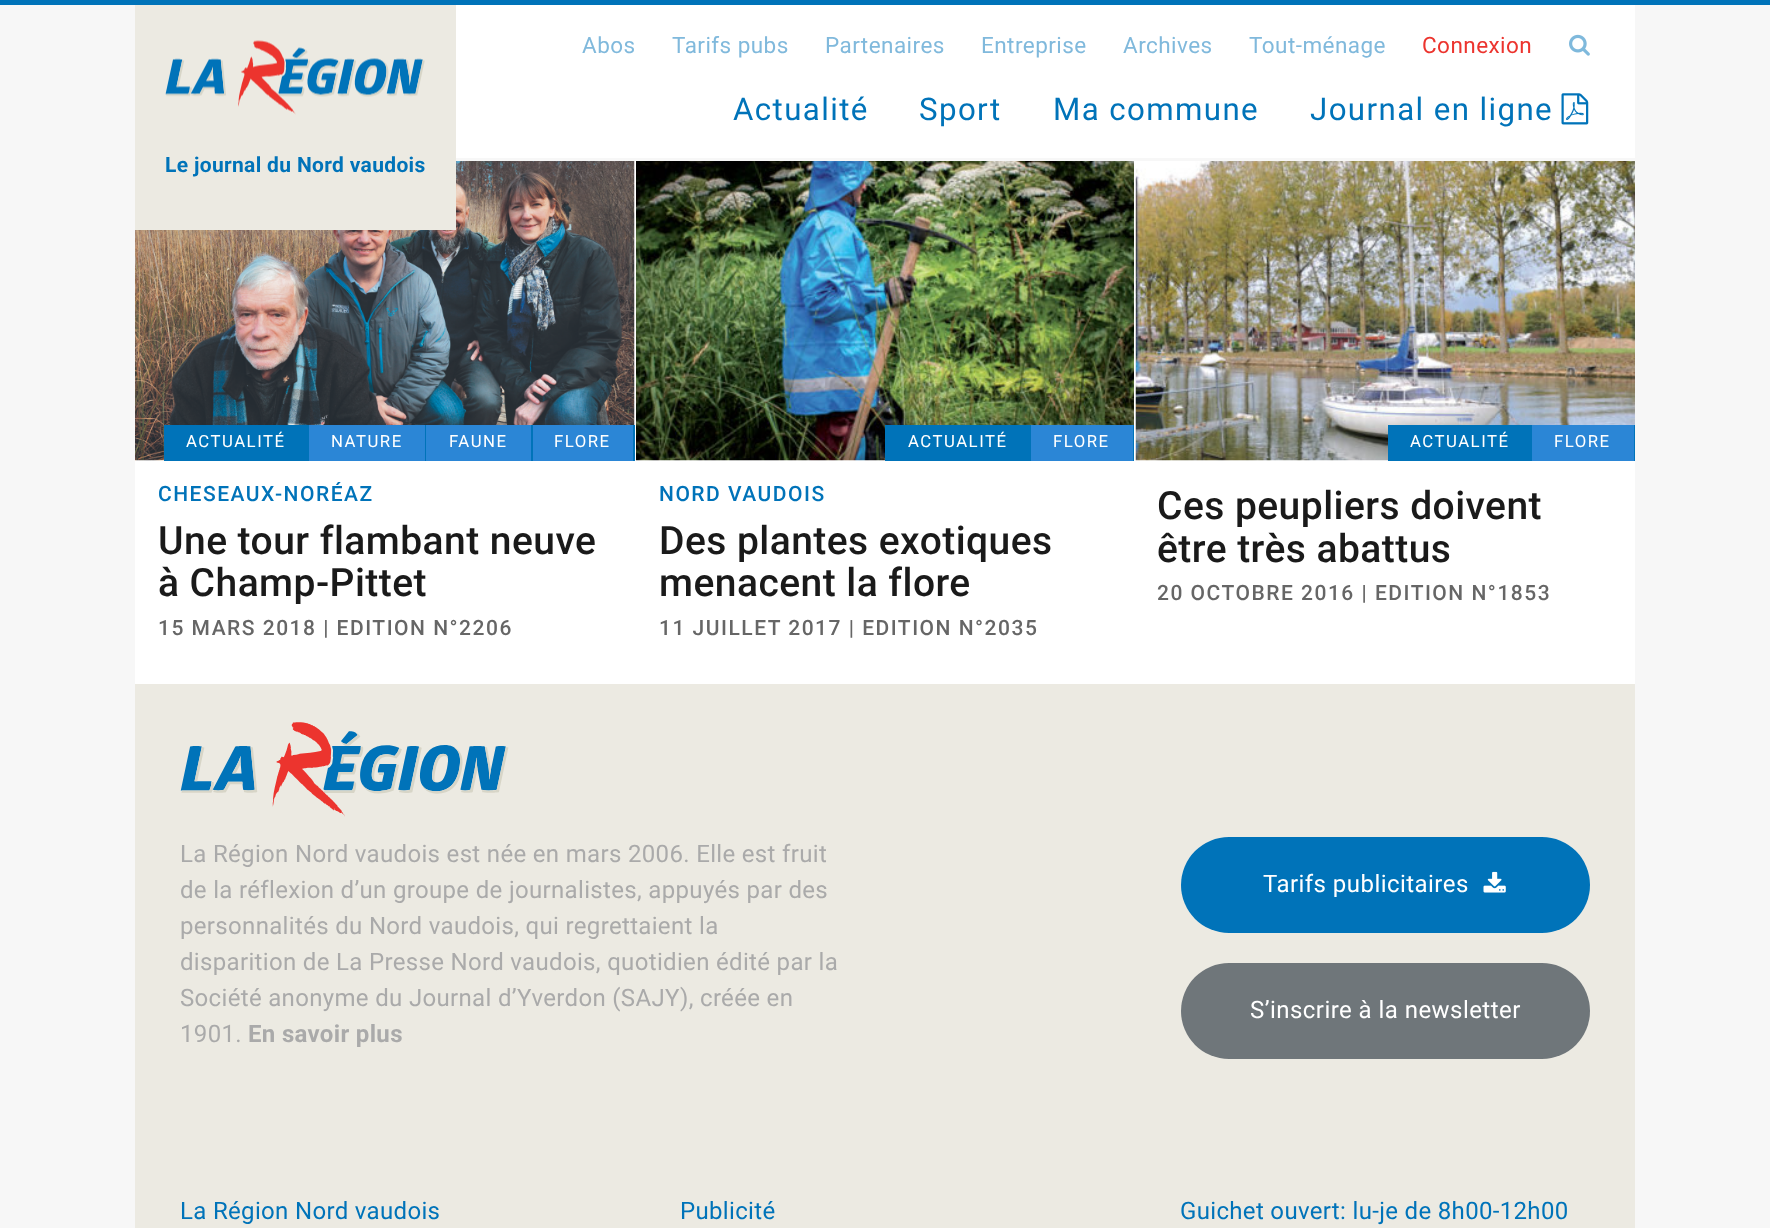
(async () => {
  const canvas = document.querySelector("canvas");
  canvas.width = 1770;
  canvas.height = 1228;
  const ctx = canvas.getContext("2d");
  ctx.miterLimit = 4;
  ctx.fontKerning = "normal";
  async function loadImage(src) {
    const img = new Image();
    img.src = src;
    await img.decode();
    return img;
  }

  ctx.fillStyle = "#f7f7f7";
  ctx.fillRect(0, 0, 1770, 1228);
  ctx.fillStyle = "#0073b9";
  ctx.fillRect(0, 0, 1770, 5);
  ctx.fillStyle = "#ffffff";
  ctx.fillRect(456, 5, 1179, 153);
  ctx.drawImage(await loadImage("img/1.png"), 1569, 34, 21, 22);
  ctx.drawImage(await loadImage("img/2.png"), 1561, 93, 28, 32);
  ctx.fillRect(135, 161, 1500, 523);
  ctx.drawImage(await loadImage("img/4.png"), 135, 161, 500, 300);
  ctx.fillStyle = "#eceae2";
  ctx.fillRect(135, 5, 321, 225);
  ctx.drawImage(await loadImage("img/3.png"), 165, 40, 260, 75);
  for (const [x, y, w, h, color] of [
    [164, 425, 145, 36, "#0073b9"],
    [309, 425, 116, 36, "#2b86d6"],
    [425, 425, 1, 36, "#0073b9"],
    [426, 425, 105, 36, "#2b86d6"],
    [531, 425, 2, 36, "#0073b9"],
    [533, 425, 100, 36, "#2b86d6"],
    [633, 425, 2, 36, "#0073b9"],
  ]) {
    ctx.fillStyle = color;
    ctx.fillRect(x, y, w, h);
  }
  ctx.drawImage(await loadImage("img/5.png"), 636, 161, 498, 300);
  for (const [x, y, w, h, color] of [
    [885, 425, 146, 36, "#0073b9"],
    [1031, 425, 102, 36, "#2b86d6"],
    [1133, 425, 1, 36, "#0073b9"],
  ]) {
    ctx.fillStyle = color;
    ctx.fillRect(x, y, w, h);
  }
  ctx.drawImage(await loadImage("img/6.png"), 1135, 161, 500, 300);
  for (const [x, y, w, h, color] of [
    [1388, 425, 144, 36, "#0073b9"],
    [1532, 425, 102, 36, "#2b86d6"],
    [1634, 425, 1, 36, "#0073b9"],
    [135, 684, 1500, 544, "#eceae2"],
  ]) {
    ctx.fillStyle = color;
    ctx.fillRect(x, y, w, h);
  }
  ctx.drawImage(await loadImage("img/7.png"), 180, 722, 329, 95);
  ctx.fillStyle = "#0073b9";
  ctx.beginPath();
  ctx.roundRect(1181, 837, 409, 96, 48);
  ctx.fill();
  ctx.drawImage(await loadImage("img/8.png"), 1483, 871, 23, 22);
  ctx.fillStyle = "#6f767a";
  ctx.beginPath();
  ctx.roundRect(1181, 963, 409, 96, 48);
  ctx.fill();
  ctx.letterSpacing = "0.45px";
  ctx.font = "22.5px Roboto";
  ctx.fillStyle = "#80b9dc";
  for (const [text, x, y] of [
    ["Abos", 582, 53],
    ["Tarifs pubs", 672, 53],
    ["Partenaires", 825, 53],
    ["Entreprise", 981, 53],
    ["Archives", 1123, 53],
    ["Tout-ménage", 1249, 53],
  ]) {
    ctx.fillText(text, x, y);
  }
  ctx.fillStyle = "#ec342e";
  ctx.fillText("Connexion", 1422, 53);
  ctx.letterSpacing = "1.4px";
  ctx.font = "31.25px Roboto";
  ctx.fillStyle = "#0073b9";
  for (const [text, x, y] of [
    ["Actualité", 733, 120],
    ["Sport", 919, 120],
    ["Ma commune", 1053, 120],
    ["Journal en ligne", 1310, 120],
  ]) {
    ctx.fillText(text, x, y);
  }
  ctx.letterSpacing = "0.33px";
  ctx.font = "bold 21px Roboto";
  ctx.fillText("Le journal du Nord vaudois", 165, 172);
  ctx.letterSpacing = "1.5px";
  ctx.font = "16.75px Roboto";
  ctx.fillStyle = "#ffffff";
  for (const [text, x, y] of [
    ["ACTUALITÉ", 186, 447],
    ["NATURE", 331, 447],
    ["FAUNE", 449, 447],
    ["FLORE", 554, 447],
  ]) {
    ctx.fillText(text, x, y);
  }
  ctx.font = "500 21px Roboto";
  ctx.fillStyle = "#0073b9";
  ctx.fillText("CHESEAUX-NORÉAZ", 158, 501);
  ctx.letterSpacing = "0.45px";
  ctx.font = "500 39px Roboto";
  ctx.fillStyle = "#1a1a1a";
  ctx.fillText("Une tour flambant neuve", 158, 554);
  ctx.fillText("à Champ-Pittet", 158, 596);
  ctx.letterSpacing = "1.5px";
  ctx.font = "500 21px Roboto";
  ctx.fillStyle = "#666666";
  ctx.fillText("15 MARS 2018 | EDITION N°2206", 158, 635);
  ctx.font = "16.75px Roboto";
  ctx.fillStyle = "#ffffff";
  ctx.fillText("ACTUALITÉ", 908, 447);
  ctx.fillText("FLORE", 1053, 447);
  ctx.font = "500 21px Roboto";
  ctx.fillStyle = "#0073b9";
  ctx.fillText("NORD VAUDOIS", 659, 501);
  ctx.letterSpacing = "0.45px";
  ctx.font = "500 39px Roboto";
  ctx.fillStyle = "#1a1a1a";
  ctx.fillText("Des plantes exotiques", 659, 554);
  ctx.fillText("menacent la flore", 659, 596);
  ctx.letterSpacing = "1.5px";
  ctx.font = "500 21px Roboto";
  ctx.fillStyle = "#666666";
  ctx.fillText("11 JUILLET 2017 | EDITION N°2035", 659, 635);
  ctx.font = "16.75px Roboto";
  ctx.fillStyle = "#ffffff";
  ctx.fillText("ACTUALITÉ", 1410, 447);
  ctx.fillText("FLORE", 1554, 447);
  ctx.letterSpacing = "0.45px";
  ctx.font = "500 39px Roboto";
  ctx.fillStyle = "#1a1a1a";
  ctx.fillText("Ces peupliers doivent", 1157, 519);
  ctx.fillText("être très abattus", 1157, 562);
  ctx.letterSpacing = "1.5px";
  ctx.font = "500 21px Roboto";
  ctx.fillStyle = "#666666";
  ctx.fillText("20 OCTOBRE 2016 | EDITION N°1853", 1157, 600);
  ctx.letterSpacing = "0.33px";
  ctx.font = "24px Roboto";
  ctx.fillStyle = "#aaaaaa";
  for (const [text, x, y] of [
    ["La Région Nord vaudois est née en mars 2006. Elle est fruit", 180, 862],
    ["de la réflexion d’un groupe de journalistes, appuyés par des", 180, 898],
    ["personnalités du Nord vaudois, qui regrettaient la", 180, 934],
    ["disparition de La Presse Nord vaudois, quotidien édité par la", 180, 970],
    ["Société anonyme du Journal d’Yverdon (SAJY), créée en", 180, 1006],
    ["1901.", 180, 1042],
  ]) {
    ctx.fillText(text, x, y);
  }
  ctx.font = "bold 24px Roboto";
  ctx.fillText("En savoir plus", 248, 1042);
  ctx.letterSpacing = "0.45px";
  ctx.font = "24px Roboto";
  ctx.fillStyle = "#ffffff";
  ctx.fillText("Tarifs publicitaires", 1263, 892);
  ctx.fillText("S’inscrire à la newsletter", 1250, 1018);
  ctx.letterSpacing = "0.33px";
  ctx.fillStyle = "#0073b9";
  for (const [text, x, y] of [
    ["La Région Nord vaudois", 180, 1219],
    ["Publicité", 680, 1219],
    ["Guichet ouvert: lu-je de 8h00-12h00", 1180, 1219],
  ]) {
    ctx.fillText(text, x, y);
  }
})();
